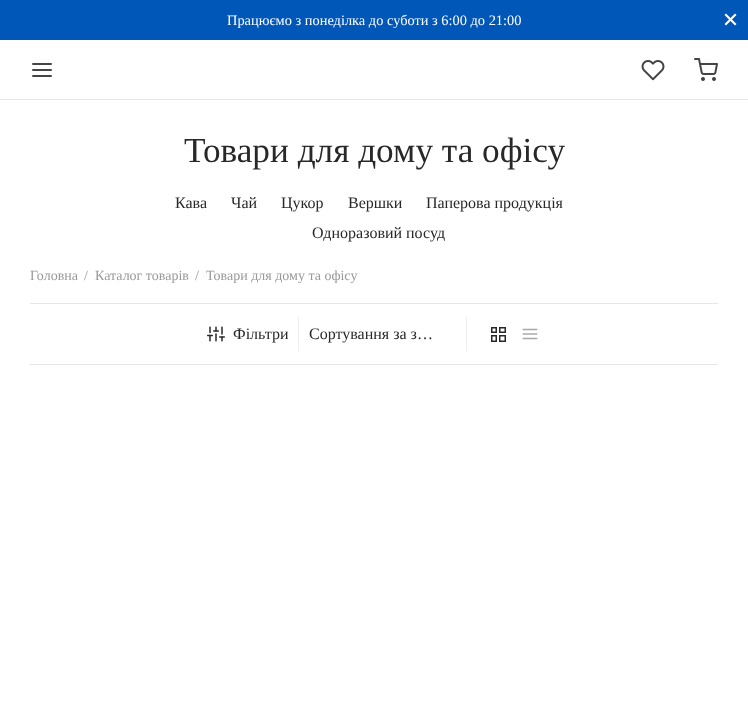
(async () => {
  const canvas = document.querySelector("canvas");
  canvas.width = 748;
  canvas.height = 708;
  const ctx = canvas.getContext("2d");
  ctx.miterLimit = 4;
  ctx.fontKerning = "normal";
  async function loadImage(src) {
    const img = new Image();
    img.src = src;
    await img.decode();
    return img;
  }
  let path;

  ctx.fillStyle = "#ffffff";
  ctx.fillRect(0, 0, 748, 708);
  ctx.fillStyle = "#0057b8";
  ctx.fillRect(0, 0, 748, 40);
  ctx.fillStyle = "#ffffff";
  path = new Path2D("M726 13.5L736.5 24L735 25.5L724.5 15Z");
  ctx.fill(path);
  path = new Path2D("M724.5 24L735 13.5L736.5 15L726 25.5Z");
  ctx.fill(path);
  path = new Path2D("M33 70H51M33 64H51M33 76H51");
  ctx.strokeStyle = "#444444";
  ctx.lineWidth = 2;
  ctx.lineCap = "round";
  ctx.lineJoin = "round";
  ctx.stroke(path);
  ctx.drawImage(await loadImage("img/1.png"), 641, 60, 24, 21);
  ctx.drawImage(await loadImage("img/2.png"), 694, 58, 24, 23);
  for (const [x, y, w, h, color] of [
    [0, 99, 748, 1, "#e6e6e6"],
    [30, 303, 688, 1, "#e6e6e6"],
    [30, 364, 688, 1, "#e6e6e6"],
    [298, 317, 1, 34, "#eeeeee"],
  ]) {
    ctx.fillStyle = color;
    ctx.fillRect(x, y, w, h);
  }
  ctx.drawImage(await loadImage("img/3.png"), 207, 326, 18, 16);
  ctx.fillRect(466, 317, 1, 34);
  ctx.drawImage(await loadImage("img/4.png"), 491, 327, 15, 15);
  ctx.drawImage(await loadImage("img/5.png"), 522, 328, 16, 12);
  ctx.font = "14.4px Liberation Serif";
  ctx.fillStyle = "#ffffff";
  ctx.fillText("Працюємо з понеділка до суботи з 6:00 до 21:00", 227, 25);
  ctx.font = "35.25px Liberation Serif";
  ctx.fillStyle = "#282828";
  ctx.fillText("Товари для дому та офісу", 184, 162);
  ctx.font = "16px Liberation Serif";
  for (const [text, x, y] of [
    ["Кава", 175, 208],
    ["Чай", 231, 208],
    ["Цукор", 281, 208],
    ["Вершки", 348, 208],
    ["Паперова продукція", 426, 208],
    ["Одноразовий посуд", 312, 238],
  ]) {
    ctx.fillText(text, x, y);
  }
  ctx.font = "14px Liberation Serif";
  ctx.fillStyle = "#999999";
  for (const [text, x, y] of [
    ["Головна", 30, 280],
    ["/", 84, 280],
    ["Каталог товарів", 95, 280],
    ["/", 195, 280],
    ["Товари для дому та офісу", 206, 280],
  ]) {
    ctx.fillText(text, x, y);
  }
  ctx.font = "16px Liberation Serif";
  ctx.fillStyle = "#282828";
  ctx.fillText("Фільтри", 233, 339);
  ctx.fillText("Сортування за з…", 309, 339);
})();
